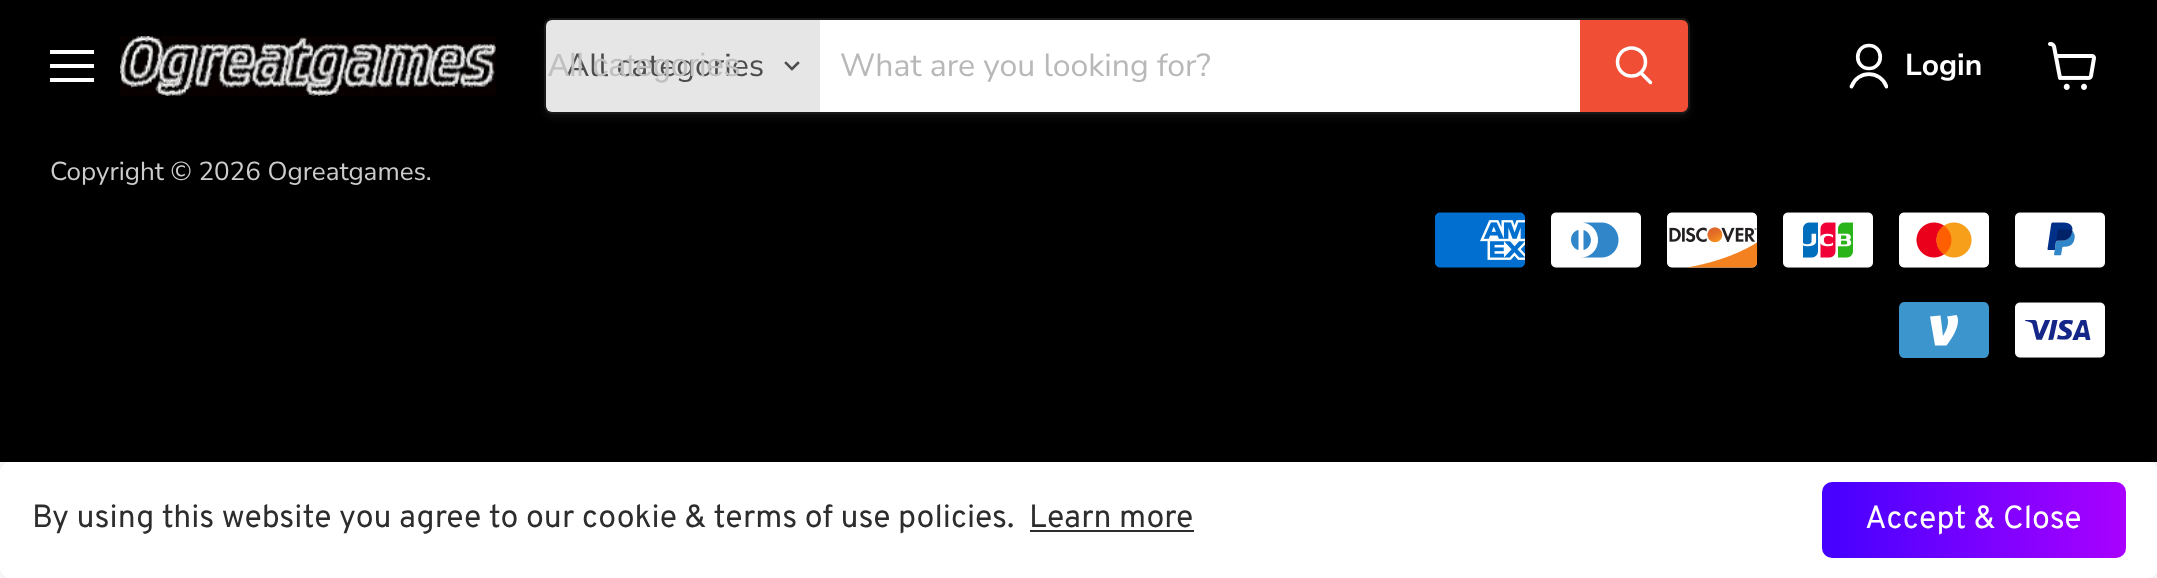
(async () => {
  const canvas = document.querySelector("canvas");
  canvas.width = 2157;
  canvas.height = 578;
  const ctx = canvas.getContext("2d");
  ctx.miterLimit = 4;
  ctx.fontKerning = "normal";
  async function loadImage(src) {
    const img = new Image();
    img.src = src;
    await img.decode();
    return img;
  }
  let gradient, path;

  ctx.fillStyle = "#000000";
  ctx.fillRect(0, 0, 2157, 578);
  for (const [x, y, w, h, color] of [
    [50, 50, 44, 4, "#ffffff"],
    [50, 64, 44, 4, "#ffffff"],
    [50, 78, 44, 4, "#ffffff"],
  ]) {
    ctx.fillStyle = color;
    ctx.fillRect(x, y, w, h);
  }
  ctx.drawImage(await loadImage("img/1.png"), 120, 36, 376, 60);
  ctx.save();
  path = new Path2D("M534 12H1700V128H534ZM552 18H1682C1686.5 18 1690 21.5 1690 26V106C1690 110.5 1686.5 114 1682 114H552C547.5 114 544 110.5 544 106V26C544 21.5 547.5 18 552 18Z");
  ctx.clip(path, "evenodd");
  ctx.fillStyle = "rgba(128, 128, 128, 0.11)";
  ctx.filter = "blur(3px)";
  ctx.beginPath();
  ctx.roundRect(544, 22, 1146, 96, 8);
  ctx.fill();
  ctx.filter = "none";
  ctx.restore();
  ctx.beginPath();
  ctx.roundRect(545, 19, 1144, 94, 7);
  ctx.strokeStyle = "rgba(128, 128, 128, 0.2)";
  ctx.lineWidth = 2;
  ctx.stroke();
  ctx.fillStyle = "#e6e6e6";
  ctx.beginPath();
  ctx.roundRect(546, 20, 274, 92, [6, 0, 0, 6]);
  ctx.fill();
  path = new Path2D("M792 69L798 63M792 69L786 63");
  ctx.strokeStyle = "#4d4d4d";
  ctx.lineWidth = 2.5;
  ctx.lineCap = "square";
  ctx.stroke(path);
  ctx.fillStyle = "#ffffff";
  ctx.fillRect(820, 20, 760, 92);
  ctx.fillStyle = "#f04f36";
  ctx.beginPath();
  ctx.roundRect(1581, 21, 106, 90, [0, 5, 5, 0]);
  ctx.fill();
  ctx.strokeStyle = "#f04f36";
  ctx.lineWidth = 2;
  ctx.stroke();
  path = new Path2D("M1650.5 82.5L1641 73");
  ctx.strokeStyle = "#ffffff";
  ctx.lineWidth = 3.5;
  ctx.lineCap = "round";
  ctx.stroke(path);
  ctx.beginPath();
  ctx.arc(1631.5, 62, 14, 0, Math.PI * 2);
  ctx.stroke();
  path = new Path2D("M1869 68.5C1884 68.5 1884 45.5 1869 45.5C1854 45.5 1854 68.5 1869 68.5Z");
  ctx.lineWidth = 3.7;
  ctx.lineJoin = "round";
  ctx.stroke(path);
  ctx.save();
  ctx.beginPath();
  ctx.rect(1848, 42, 40, 48);
  ctx.clip();
  path = new Path2D("M1886.5 86.5C1880.5 70 1857.5 70 1851.5 86.5");
  ctx.stroke(path);
  ctx.restore();
  ctx.drawImage(await loadImage("img/2.png"), 2048, 42, 48, 48);
  ctx.drawImage(await loadImage("img/3.png"), 1435, 212, 90, 56);
  ctx.drawImage(await loadImage("img/4.png"), 1551, 212, 90, 56);
  ctx.drawImage(await loadImage("img/5.png"), 1667, 212, 91, 56);
  ctx.drawImage(await loadImage("img/6.png"), 1783, 212, 90, 56);
  ctx.drawImage(await loadImage("img/7.png"), 1899, 212, 90, 56);
  ctx.drawImage(await loadImage("img/8.png"), 2015, 212, 90, 56);
  ctx.fillStyle = "#3d95ce";
  path = new Path2D("M1984 302C1987 302 1989 305 1989 308V352C1989 355 1987 358 1984 358H1904C1901 358 1899 355 1899 352V308C1899 305 1901 302 1904 302H1984");
  ctx.fill(path, "evenodd");
  ctx.fillStyle = "#ffffff";
  path = new Path2D("M1958 321C1958 328.5 1952 338.5 1946.5 345.5H1935L1930 316.5L1940.5 315.5L1943 336C1946 330.5 1950 323 1947 316.5L1956.5 315C1957.5 316.5 1958 318.5 1958 321Z");
  ctx.fill(path);
  ctx.drawImage(await loadImage("img/9.png"), 2015, 302, 90, 56);
  ctx.fillRect(0, 462, 2157, 116);
  ctx.save();
  path = new Path2D("M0 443H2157V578H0ZM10 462H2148C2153.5 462 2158 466.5 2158 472V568C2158 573.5 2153.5 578 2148 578H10C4.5 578 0 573.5 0 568V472C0 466.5 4.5 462 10 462Z");
  ctx.clip(path, "evenodd");
  ctx.fillStyle = "rgba(0, 0, 0, 0.12)";
  ctx.filter = "blur(6px)";
  ctx.beginPath();
  ctx.roundRect(0, 462, 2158, 116, 10);
  ctx.fill();
  ctx.filter = "none";
  ctx.restore();
  ctx.fillStyle = "#2d2d2d";
  ctx.fillRect(1030, 530, 164, 2);
  gradient = ctx.createLinearGradient(1822, 520, 2126, 520);
  gradient.addColorStop(0, "#4401ff");
  gradient.addColorStop(1, "#a901ff");
  ctx.fillStyle = gradient;
  ctx.beginPath();
  ctx.roundRect(1822, 482, 304, 76, 10);
  ctx.fill();
  ctx.font = "32px Nunito Sans";
  ctx.fillStyle = "#4d4d4d";
  ctx.fillText("All categories", 566, 76);
  ctx.font = "32px Liberation Sans";
  ctx.fillStyle = "#c0c0c0";
  ctx.fillText("All categories", 548, 76);
  ctx.font = "32px Nunito Sans";
  ctx.fillStyle = "#b8b8b8";
  ctx.fillText("What are you looking for?", 840, 76);
  ctx.font = "bold 30px Nunito Sans";
  ctx.fillStyle = "#ffffff";
  ctx.fillText("Login", 1905, 75);
  ctx.font = "26px Nunito Sans";
  ctx.fillStyle = "#cccccc";
  ctx.fillText("Copyright © 2026 Ogreatgames.", 50, 180);
  ctx.font = "32px Overpass";
  ctx.fillStyle = "#2d2d2d";
  ctx.fillText("By using this website you agree to our cookie & terms of use policies.", 32, 527);
  ctx.fillText("Learn more", 1029, 527);
  ctx.fillStyle = "#ffffff";
  ctx.fillText("Accept & Close", 1865, 528);
})();
